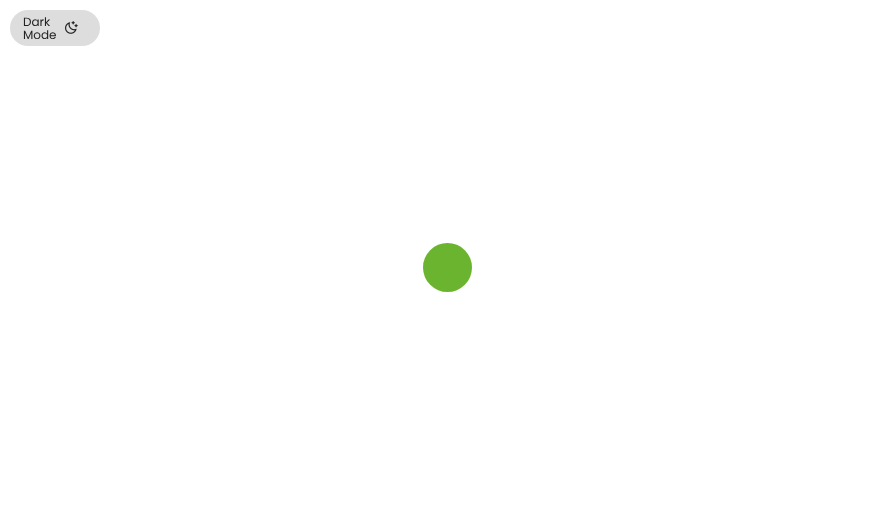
(async () => {
  const canvas = document.querySelector("canvas");
  canvas.width = 895;
  canvas.height = 512;
  const ctx = canvas.getContext("2d");
  ctx.miterLimit = 4;
  ctx.fontKerning = "normal";
  async function loadImage(src) {
    const img = new Image();
    img.src = src;
    await img.decode();
    return img;
  }

  ctx.fillStyle = "#ffffff";
  ctx.fillRect(0, 0, 895, 512);
  ctx.fillStyle = "#dddddd";
  ctx.beginPath();
  ctx.roundRect(10, 10, 90, 36, 18);
  ctx.fill();
  ctx.drawImage(await loadImage("img/1.png"), 65, 21, 13, 13);
  ctx.fillStyle = "#6bb42f";
  ctx.beginPath();
  ctx.arc(447.5, 267.5, 24.5, 0, Math.PI * 2);
  ctx.fill();
  ctx.font = "12px Poppins";
  ctx.fillStyle = "#222222";
  ctx.fillText("Dark", 23, 26);
  ctx.fillText("Mode", 23, 39);
})();
